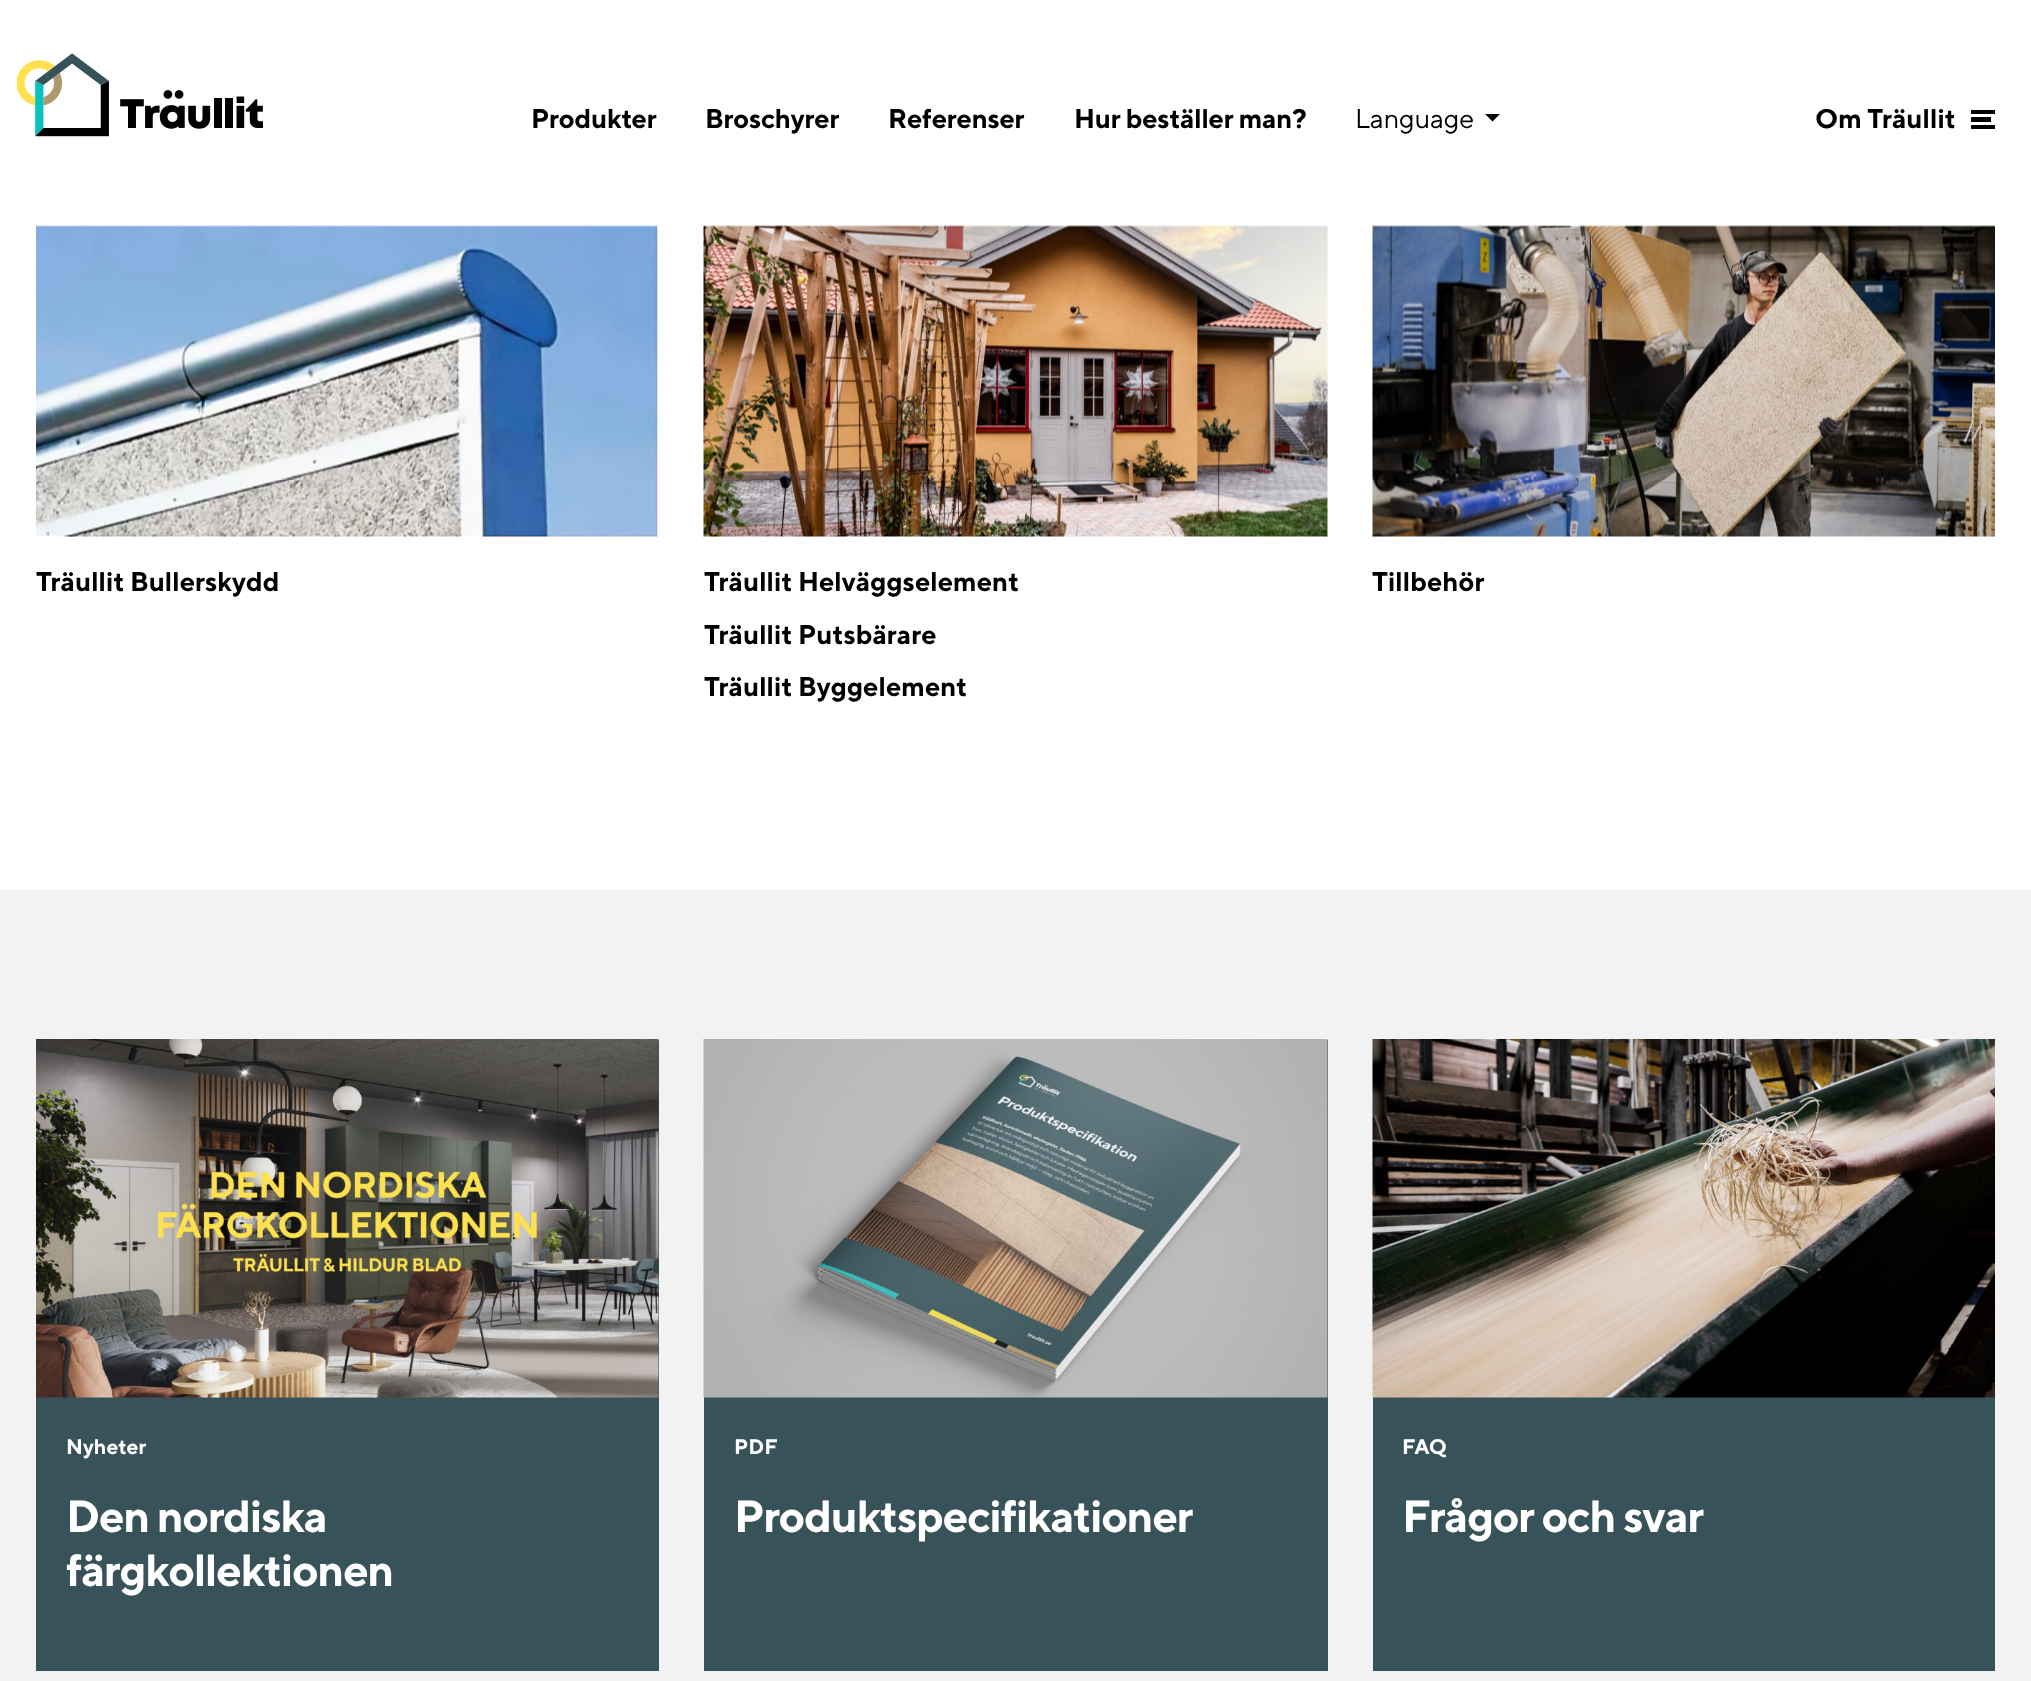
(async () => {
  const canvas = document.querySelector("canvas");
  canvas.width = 2031;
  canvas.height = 1681;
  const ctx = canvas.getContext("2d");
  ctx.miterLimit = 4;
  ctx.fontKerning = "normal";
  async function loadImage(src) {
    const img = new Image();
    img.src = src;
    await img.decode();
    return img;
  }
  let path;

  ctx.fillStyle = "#ffffff";
  ctx.fillRect(0, 0, 2031, 1681);
  ctx.drawImage(await loadImage("img/1.png"), 17, 53, 246, 84);
  ctx.fillStyle = "#000000";
  path = new Path2D("M1485 114H1500L1492.5 121.5Z");
  ctx.fill(path);
  for (const [x, y, w, h, color] of [
    [1971, 110, 24, 4, "#000000"],
    [1971, 117, 20, 5, "#000000"],
    [1971, 125, 24, 4, "#000000"],
  ]) {
    ctx.fillStyle = color;
    ctx.fillRect(x, y, w, h);
  }
  ctx.drawImage(await loadImage("img/2.png"), 36, 225, 623, 312);
  ctx.drawImage(await loadImage("img/3.png"), 703, 225, 625, 312);
  ctx.drawImage(await loadImage("img/4.png"), 1372, 225, 623, 312);
  ctx.fillStyle = "#f2f2f2";
  ctx.fillRect(0, 890, 2031, 791);
  ctx.fillStyle = "#385259";
  ctx.fillRect(36, 1040, 623, 631);
  ctx.drawImage(await loadImage("img/5.png"), 36, 1039, 623, 359);
  ctx.fillRect(704, 1040, 624, 631);
  ctx.drawImage(await loadImage("img/6.png"), 703, 1039, 625, 359);
  ctx.fillRect(1373, 1397, 622, 274);
  ctx.drawImage(await loadImage("img/7.png"), 1372, 1039, 623, 359);
  ctx.letterSpacing = "-0.25px";
  ctx.font = "bold 27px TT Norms";
  ctx.fillStyle = "#000000";
  for (const [text, x, y] of [
    ["Produkter", 531, 128],
    ["Broschyrer", 705, 128],
    ["Referenser", 888, 128],
    ["Hur beställer man?", 1074, 128],
  ]) {
    ctx.fillText(text, x, y);
  }
  ctx.font = "27px TT Norms";
  ctx.fillText("Language", 1355, 128);
  ctx.letterSpacing = "0px";
  ctx.font = "bold 27px TT Norms";
  for (const [text, x, y] of [
    ["Om Träullit", 1815, 128],
    ["Träullit Bullerskydd", 36, 591],
    ["Träullit Helväggselement", 704, 591],
    ["Träullit Putsbärare", 704, 644],
    ["Träullit Byggelement", 704, 696],
    ["Tillbehör", 1372, 591],
  ]) {
    ctx.fillText(text, x, y);
  }
  ctx.font = "bold 21px TT Norms";
  ctx.fillStyle = "#ffffff";
  ctx.fillText("Nyheter", 66, 1454);
  ctx.letterSpacing = "-1.2px";
  ctx.font = "bold 45px TT Norms";
  ctx.fillText("Den nordiska", 66, 1532);
  ctx.fillText("färgkollektionen", 66, 1586);
  ctx.letterSpacing = "0px";
  ctx.font = "bold 21px TT Norms";
  ctx.fillText("PDF", 734, 1454);
  ctx.letterSpacing = "-1.2px";
  ctx.font = "bold 45px TT Norms";
  ctx.fillText("Produktspecifikationer", 734, 1532);
  ctx.letterSpacing = "0px";
  ctx.font = "bold 21px TT Norms";
  ctx.fillText("FAQ", 1402, 1454);
  ctx.letterSpacing = "-1.2px";
  ctx.font = "bold 45px TT Norms";
  ctx.fillText("Frågor och svar", 1402, 1532);
})();
